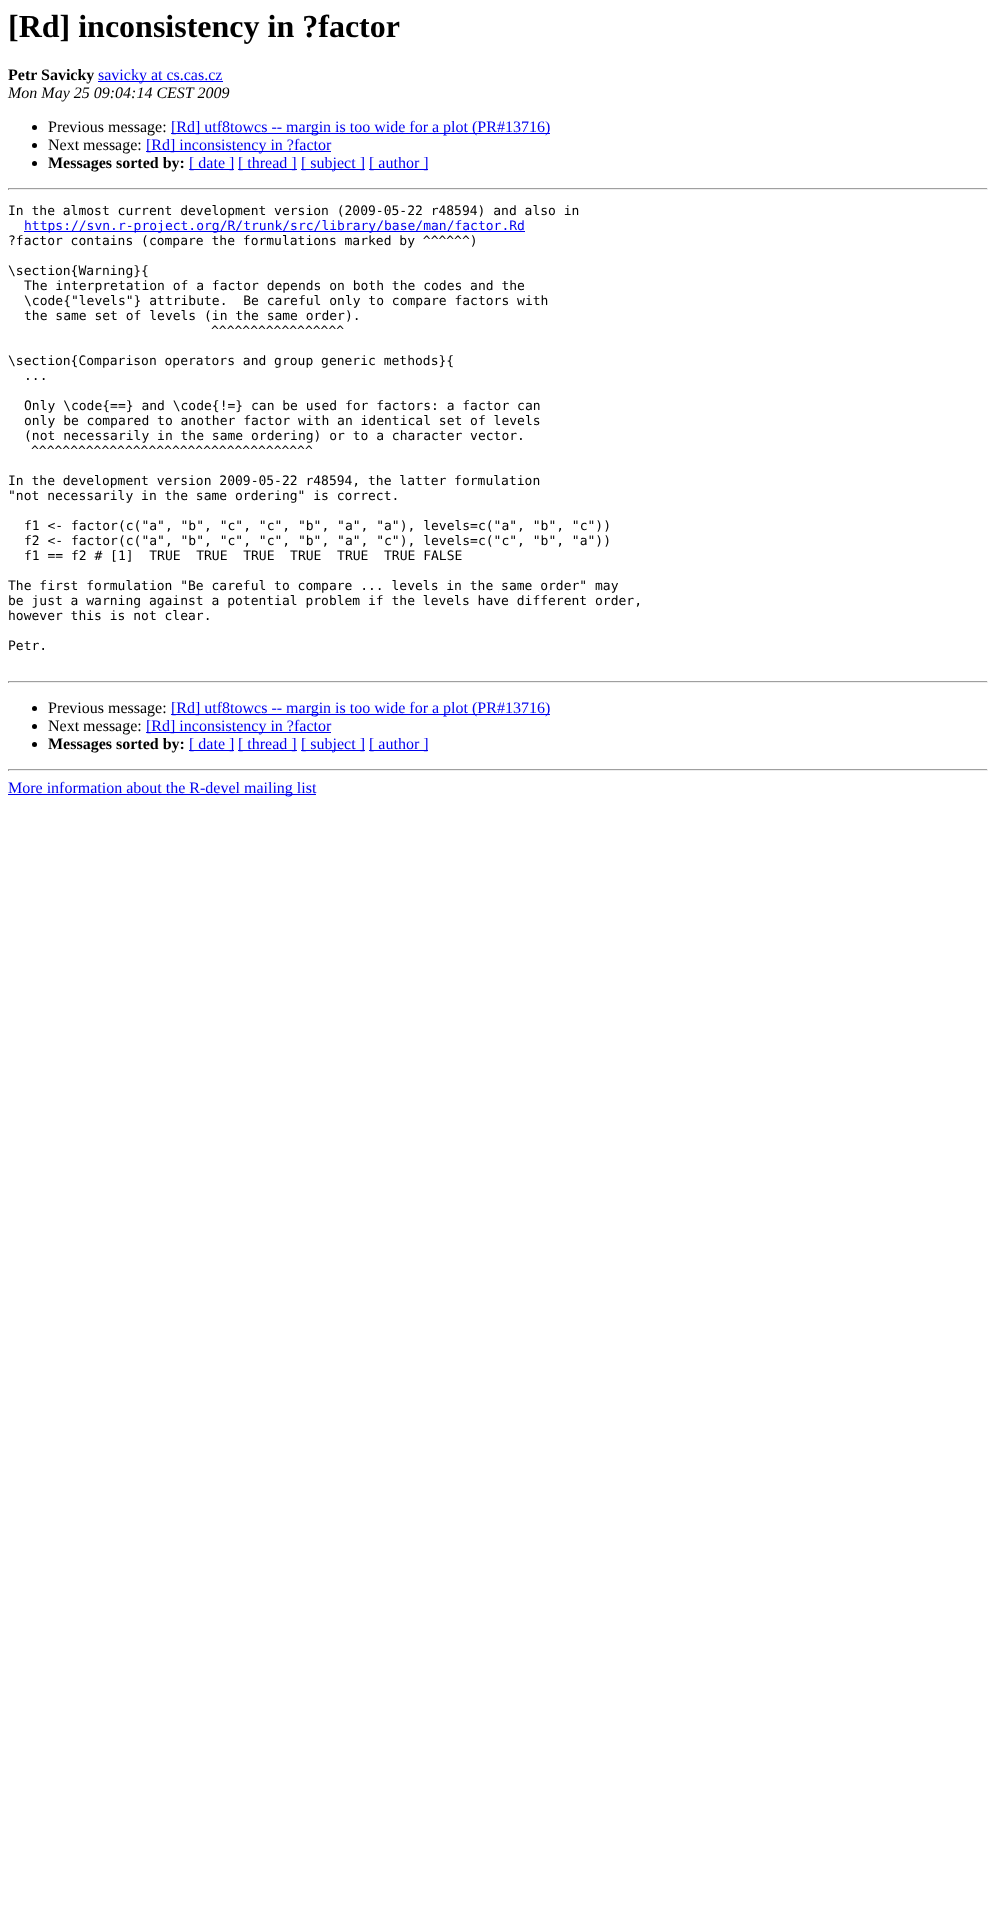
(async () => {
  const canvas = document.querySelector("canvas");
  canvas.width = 996;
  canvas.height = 1928;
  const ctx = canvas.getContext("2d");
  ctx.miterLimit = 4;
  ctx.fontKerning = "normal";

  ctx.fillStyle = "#ffffff";
  ctx.fillRect(0, 0, 996, 1928);
  ctx.fillStyle = "#0000ee";
  ctx.fillRect(98, 81, 125, 1);
  ctx.fillStyle = "#000000";
  ctx.beginPath();
  ctx.arc(34.5, 127.5, 2.5, 0, Math.PI * 2);
  ctx.fill();
  ctx.fillStyle = "#0000ee";
  ctx.fillRect(171, 133, 379, 1);
  ctx.fillStyle = "#000000";
  ctx.beginPath();
  ctx.arc(34.5, 145.5, 2.5, 0, Math.PI * 2);
  ctx.fill();
  ctx.fillStyle = "#0000ee";
  ctx.fillRect(146, 151, 185, 1);
  ctx.fillStyle = "#000000";
  ctx.beginPath();
  ctx.arc(34.5, 163.5, 2.5, 0, Math.PI * 2);
  ctx.fill();
  for (const [x, y, w, h, color] of [
    [189, 169, 45, 1, "#0000ee"],
    [238, 169, 59, 1, "#0000ee"],
    [301, 169, 64, 1, "#0000ee"],
    [369, 169, 59, 1, "#0000ee"],
    [8, 188, 980, 1, "#9f9f9f"],
    [987, 188, 1, 2, "#eeeeee"],
    [8, 189, 980, 1, "#eeeeee"],
    [8, 188, 1, 2, "#9f9f9f"],
    [24, 231, 501, 1, "#0000ee"],
    [8, 681, 980, 1, "#9f9f9f"],
    [987, 681, 1, 2, "#eeeeee"],
    [8, 682, 980, 1, "#eeeeee"],
    [8, 681, 1, 2, "#9f9f9f"],
  ]) {
    ctx.fillStyle = color;
    ctx.fillRect(x, y, w, h);
  }
  ctx.fillStyle = "#000000";
  ctx.beginPath();
  ctx.arc(34.5, 708.5, 2.5, 0, Math.PI * 2);
  ctx.fill();
  ctx.fillStyle = "#0000ee";
  ctx.fillRect(171, 714, 379, 1);
  ctx.fillStyle = "#000000";
  ctx.beginPath();
  ctx.arc(34.5, 726.5, 2.5, 0, Math.PI * 2);
  ctx.fill();
  ctx.fillStyle = "#0000ee";
  ctx.fillRect(146, 732, 185, 1);
  ctx.fillStyle = "#000000";
  ctx.beginPath();
  ctx.arc(34.5, 744.5, 2.5, 0, Math.PI * 2);
  ctx.fill();
  for (const [x, y, w, h, color] of [
    [189, 750, 45, 1, "#0000ee"],
    [238, 750, 59, 1, "#0000ee"],
    [301, 750, 64, 1, "#0000ee"],
    [369, 750, 59, 1, "#0000ee"],
    [8, 769, 980, 1, "#9f9f9f"],
    [987, 769, 1, 2, "#eeeeee"],
    [8, 770, 980, 1, "#eeeeee"],
    [8, 769, 1, 2, "#9f9f9f"],
    [8, 794, 308, 1, "#0000ee"],
  ]) {
    ctx.fillStyle = color;
    ctx.fillRect(x, y, w, h);
  }
  ctx.font = "bold 32px Liberation Serif";
  ctx.fillStyle = "#000000";
  ctx.fillText("[Rd] inconsistency in ?factor", 8, 37);
  ctx.font = "bold 16px Liberation Serif";
  ctx.fillText("Petr Savicky", 8, 80);
  ctx.font = "16px Liberation Serif";
  ctx.fillStyle = "#0000ee";
  ctx.fillText("savicky at cs.cas.cz", 98, 80);
  ctx.font = "italic 16px Liberation Serif";
  ctx.fillStyle = "#000000";
  ctx.fillText("Mon May 25 09:04:14 CEST 2009", 8, 98);
  ctx.font = "16px Liberation Serif";
  ctx.fillText("Previous message:", 48, 132);
  ctx.fillStyle = "#0000ee";
  ctx.fillText("[Rd] utf8towcs -- margin is too wide for a plot (PR#13716)", 171, 132);
  ctx.fillStyle = "#000000";
  ctx.fillText("Next message:", 48, 150);
  ctx.fillStyle = "#0000ee";
  ctx.fillText("[Rd] inconsistency in ?factor", 146, 150);
  ctx.font = "bold 16px Liberation Serif";
  ctx.fillStyle = "#000000";
  ctx.fillText("Messages sorted by:", 48, 168);
  ctx.font = "16px Liberation Serif";
  ctx.fillStyle = "#0000ee";
  for (const [text, x, y] of [
    ["[ date ]", 189, 168],
    ["[ thread ]", 238, 168],
    ["[ subject ]", 301, 168],
    ["[ author ]", 369, 168],
  ]) {
    ctx.fillText(text, x, y);
  }
  ctx.font = "13px DejaVu Sans Mono";
  ctx.fillStyle = "#000000";
  ctx.fillText("In the almost current development version (2009-05-22 r48594) and also in", 8, 215);
  ctx.fillStyle = "#0000ee";
  ctx.fillText("https://svn.r-project.org/R/trunk/src/library/base/man/factor.Rd", 24, 230);
  ctx.fillStyle = "#000000";
  for (const [text, x, y] of [
    ["?factor contains (compare the formulations marked by ^^^^^^)", 8, 245],
    ["\\section{Warning}{", 8, 275],
    ["The interpretation of a factor depends on both the codes and the", 24, 290],
    ["\\code{\"levels\"} attribute.  Be careful only to compare factors with", 24, 305],
    ["the same set of levels (in the same order).", 24, 320],
    ["^^^^^^^^^^^^^^^^^", 211, 335],
    ["\\section{Comparison operators and group generic methods}{", 8, 365],
    ["...", 24, 380],
    ["Only \\code{==} and \\code{!=} can be used for factors: a factor can", 24, 410],
    ["only be compared to another factor with an identical set of levels", 24, 425],
    ["(not necessarily in the same ordering) or to a character vector.", 24, 440],
    ["^^^^^^^^^^^^^^^^^^^^^^^^^^^^^^^^^^^^", 31, 455],
    ["In the development version 2009-05-22 r48594, the latter formulation", 8, 485],
    ["\"not necessarily in the same ordering\" is correct.", 8, 500],
    ["f1 <- factor(c(\"a\", \"b\", \"c\", \"c\", \"b\", \"a\", \"a\"), levels=c(\"a\", \"b\", \"c\"))", 24, 530],
    ["f2 <- factor(c(\"a\", \"b\", \"c\", \"c\", \"b\", \"a\", \"c\"), levels=c(\"c\", \"b\", \"a\"))", 24, 545],
    ["f1 == f2 # [1]  TRUE  TRUE  TRUE  TRUE  TRUE  TRUE FALSE", 24, 560],
    ["The first formulation \"Be careful to compare ... levels in the same order\" may", 8, 590],
    ["be just a warning against a potential problem if the levels have different order,", 8, 605],
    ["however this is not clear.", 8, 620],
    ["Petr.", 8, 650],
  ]) {
    ctx.fillText(text, x, y);
  }
  ctx.font = "16px Liberation Serif";
  ctx.fillText("Previous message:", 48, 713);
  ctx.fillStyle = "#0000ee";
  ctx.fillText("[Rd] utf8towcs -- margin is too wide for a plot (PR#13716)", 171, 713);
  ctx.fillStyle = "#000000";
  ctx.fillText("Next message:", 48, 731);
  ctx.fillStyle = "#0000ee";
  ctx.fillText("[Rd] inconsistency in ?factor", 146, 731);
  ctx.font = "bold 16px Liberation Serif";
  ctx.fillStyle = "#000000";
  ctx.fillText("Messages sorted by:", 48, 749);
  ctx.font = "16px Liberation Serif";
  ctx.fillStyle = "#0000ee";
  for (const [text, x, y] of [
    ["[ date ]", 189, 749],
    ["[ thread ]", 238, 749],
    ["[ subject ]", 301, 749],
    ["[ author ]", 369, 749],
    ["More information about the R-devel mailing list", 8, 793],
  ]) {
    ctx.fillText(text, x, y);
  }
})();
